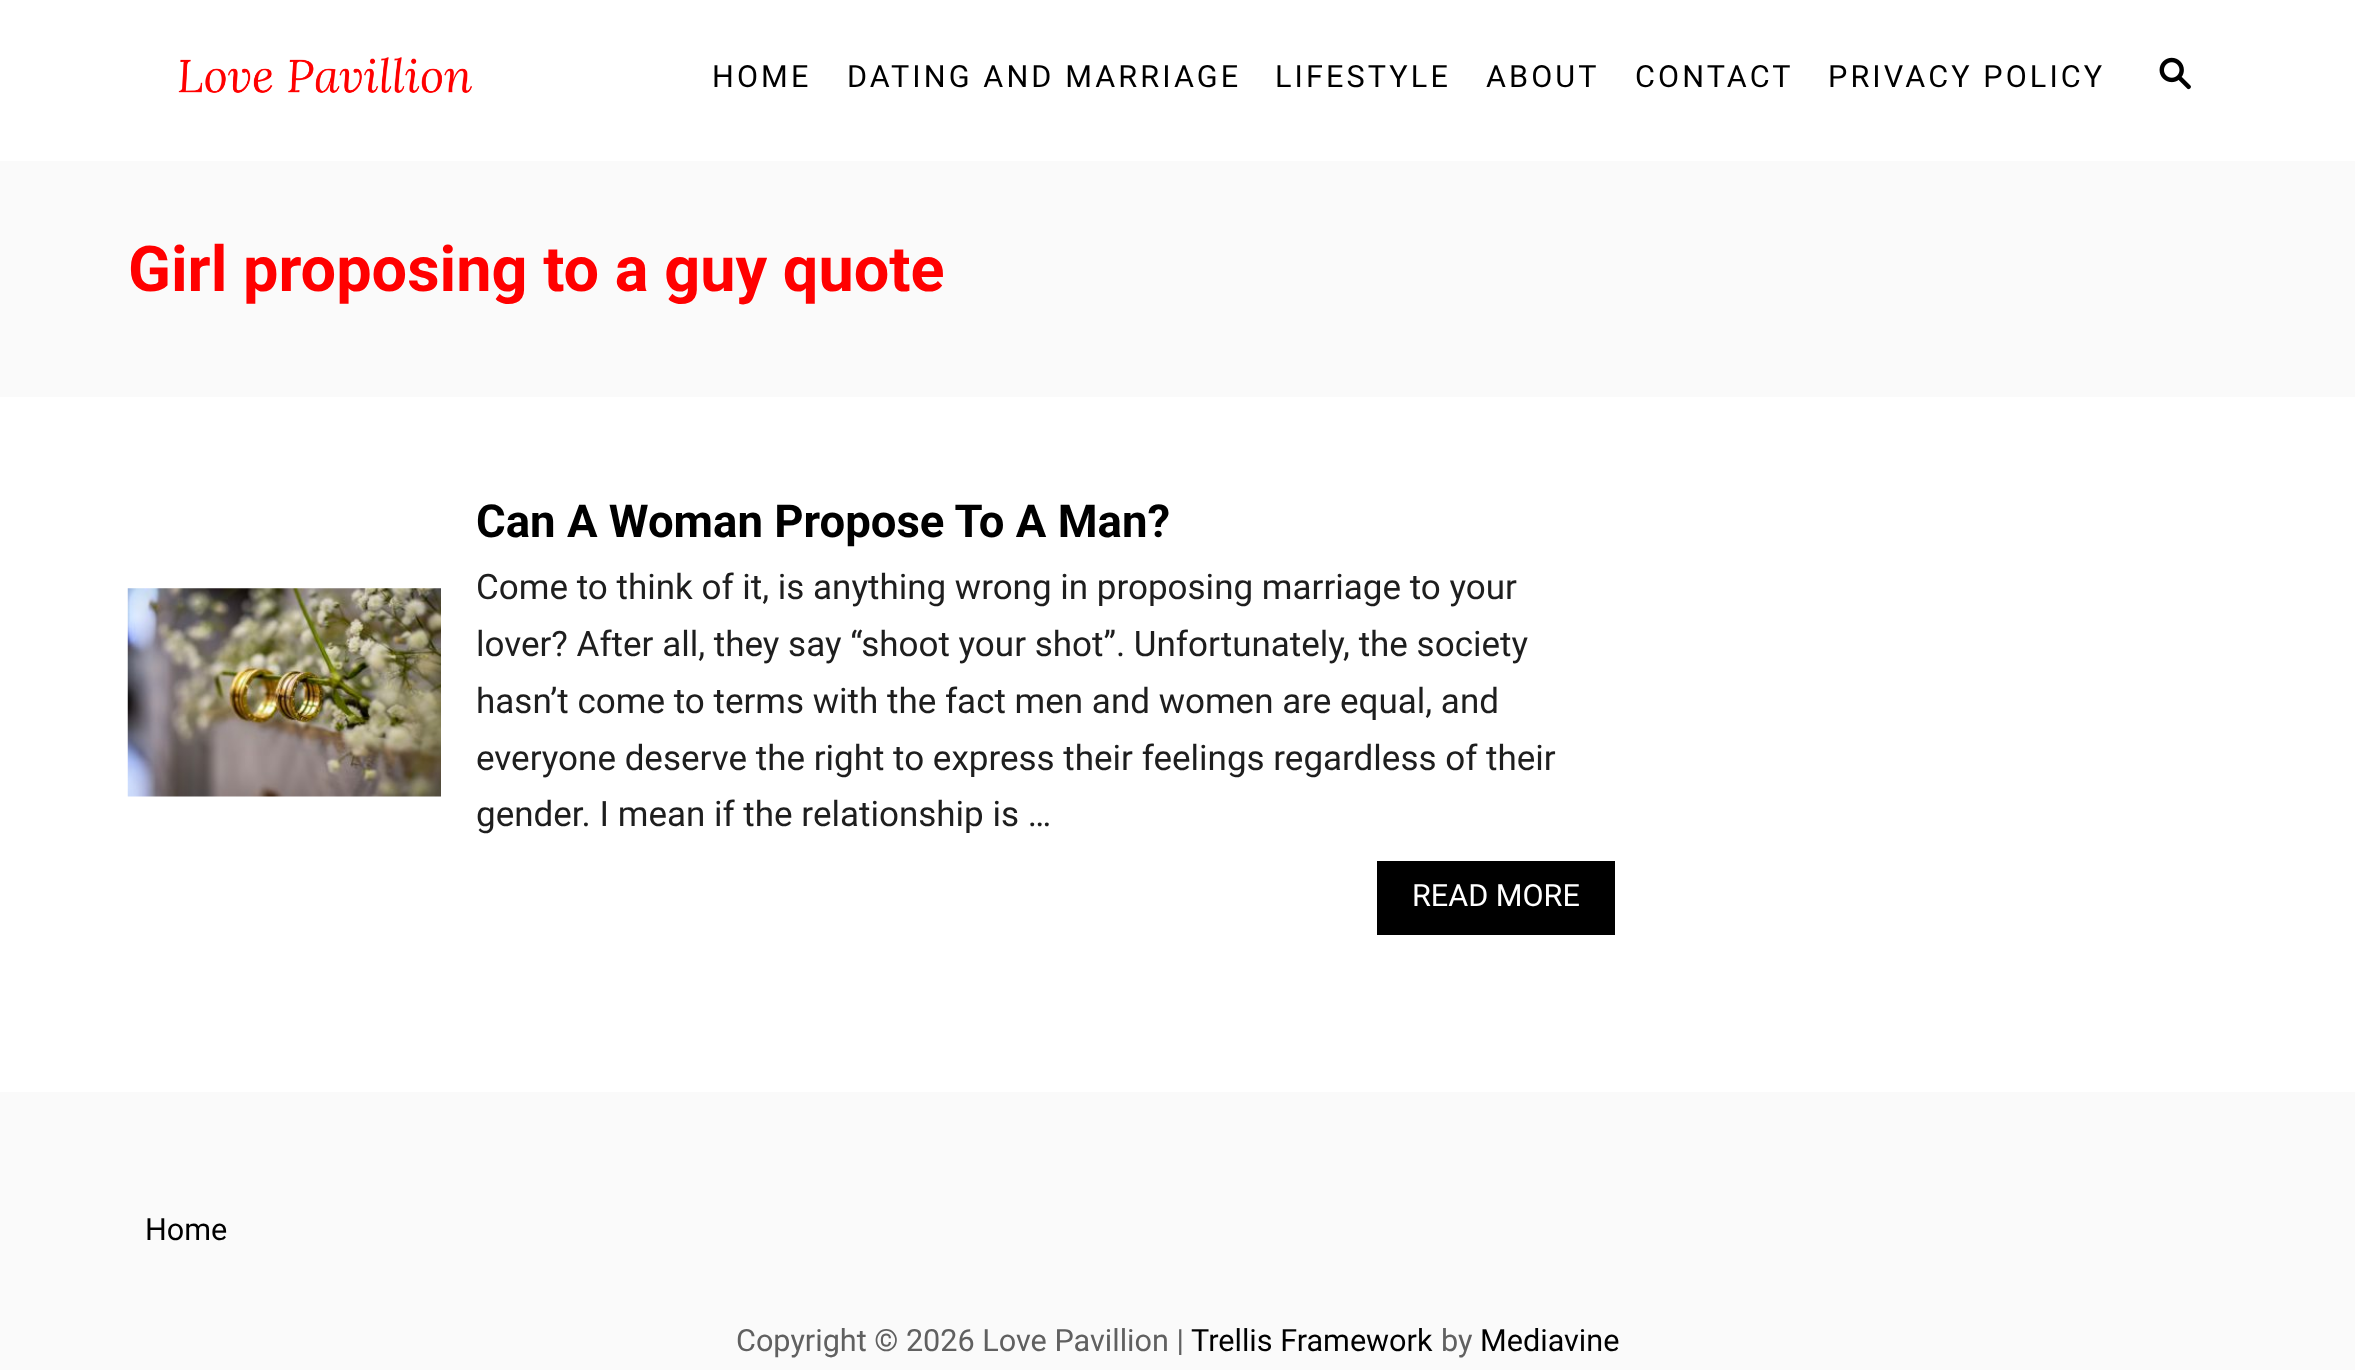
(async () => {
  const canvas = document.querySelector("canvas");
  canvas.width = 2355;
  canvas.height = 1370;
  const ctx = canvas.getContext("2d");
  ctx.miterLimit = 4;
  ctx.fontKerning = "normal";
  async function loadImage(src) {
    const img = new Image();
    img.src = src;
    await img.decode();
    return img;
  }

  ctx.fillStyle = "#ffffff";
  ctx.fillRect(0, 0, 2355, 1370);
  ctx.drawImage(await loadImage("img/1.png"), 178, 57, 294, 36);
  ctx.drawImage(await loadImage("img/2.png"), 2159, 57, 32, 33);
  ctx.fillStyle = "#fafafa";
  ctx.fillRect(1615, 161, 740, 236);
  ctx.fillRect(0, 161, 1615, 236);
  ctx.drawImage(await loadImage("img/3.png"), 127, 588, 314, 209);
  ctx.fillStyle = "#000000";
  ctx.fillRect(1377, 861, 238, 74);
  ctx.fillStyle = "#fafafa";
  ctx.fillRect(0, 1092, 2355, 278);
  ctx.letterSpacing = "3.1px";
  ctx.font = "30.6px Roboto";
  ctx.fillStyle = "#000000";
  for (const [text, x, y] of [
    ["HOME", 712, 87],
    ["DATING AND MARRIAGE", 847, 87],
    ["LIFESTYLE", 1275, 87],
    ["ABOUT", 1486, 87],
    ["CONTACT", 1635, 87],
    ["PRIVACY POLICY", 1828, 87],
  ]) {
    ctx.fillText(text, x, y);
  }
  ctx.letterSpacing = "0px";
  ctx.font = "bold 63px Roboto";
  ctx.fillStyle = "#ff0000";
  ctx.fillText("Girl proposing to a guy quote", 128, 291);
  ctx.font = "bold 45.5px Roboto";
  ctx.fillStyle = "#000000";
  ctx.fillText("Can A Woman Propose To A Man?", 476, 537);
  ctx.font = "35px Roboto";
  ctx.fillStyle = "#1e1e1e";
  for (const [text, x, y] of [
    ["Come to think of it, is anything wrong in proposing marriage to your", 476, 599],
    ["lover? After all, they say “shoot your shot”. Unfortunately, the society", 476, 656],
    ["hasn’t come to terms with the fact men and women are equal, and", 476, 713],
    ["everyone deserve the right to express their feelings regardless of their", 476, 770],
    ["gender. I mean if the relationship is …", 476, 826],
  ]) {
    ctx.fillText(text, x, y);
  }
  ctx.font = "30.6px Roboto";
  ctx.fillStyle = "#ffffff";
  ctx.fillText("READ MORE", 1412, 906);
  ctx.fillStyle = "#000000";
  ctx.fillText("Home", 145, 1240);
  ctx.fillStyle = "#606060";
  ctx.fillText("Copyright © 2026 Love Pavillion |", 736, 1351);
  ctx.fillStyle = "#000000";
  ctx.fillText("Trellis Framework", 1191, 1351);
  ctx.fillStyle = "#606060";
  ctx.fillText("by", 1441, 1351);
  ctx.fillStyle = "#000000";
  ctx.fillText("Mediavine", 1480, 1351);
})();
